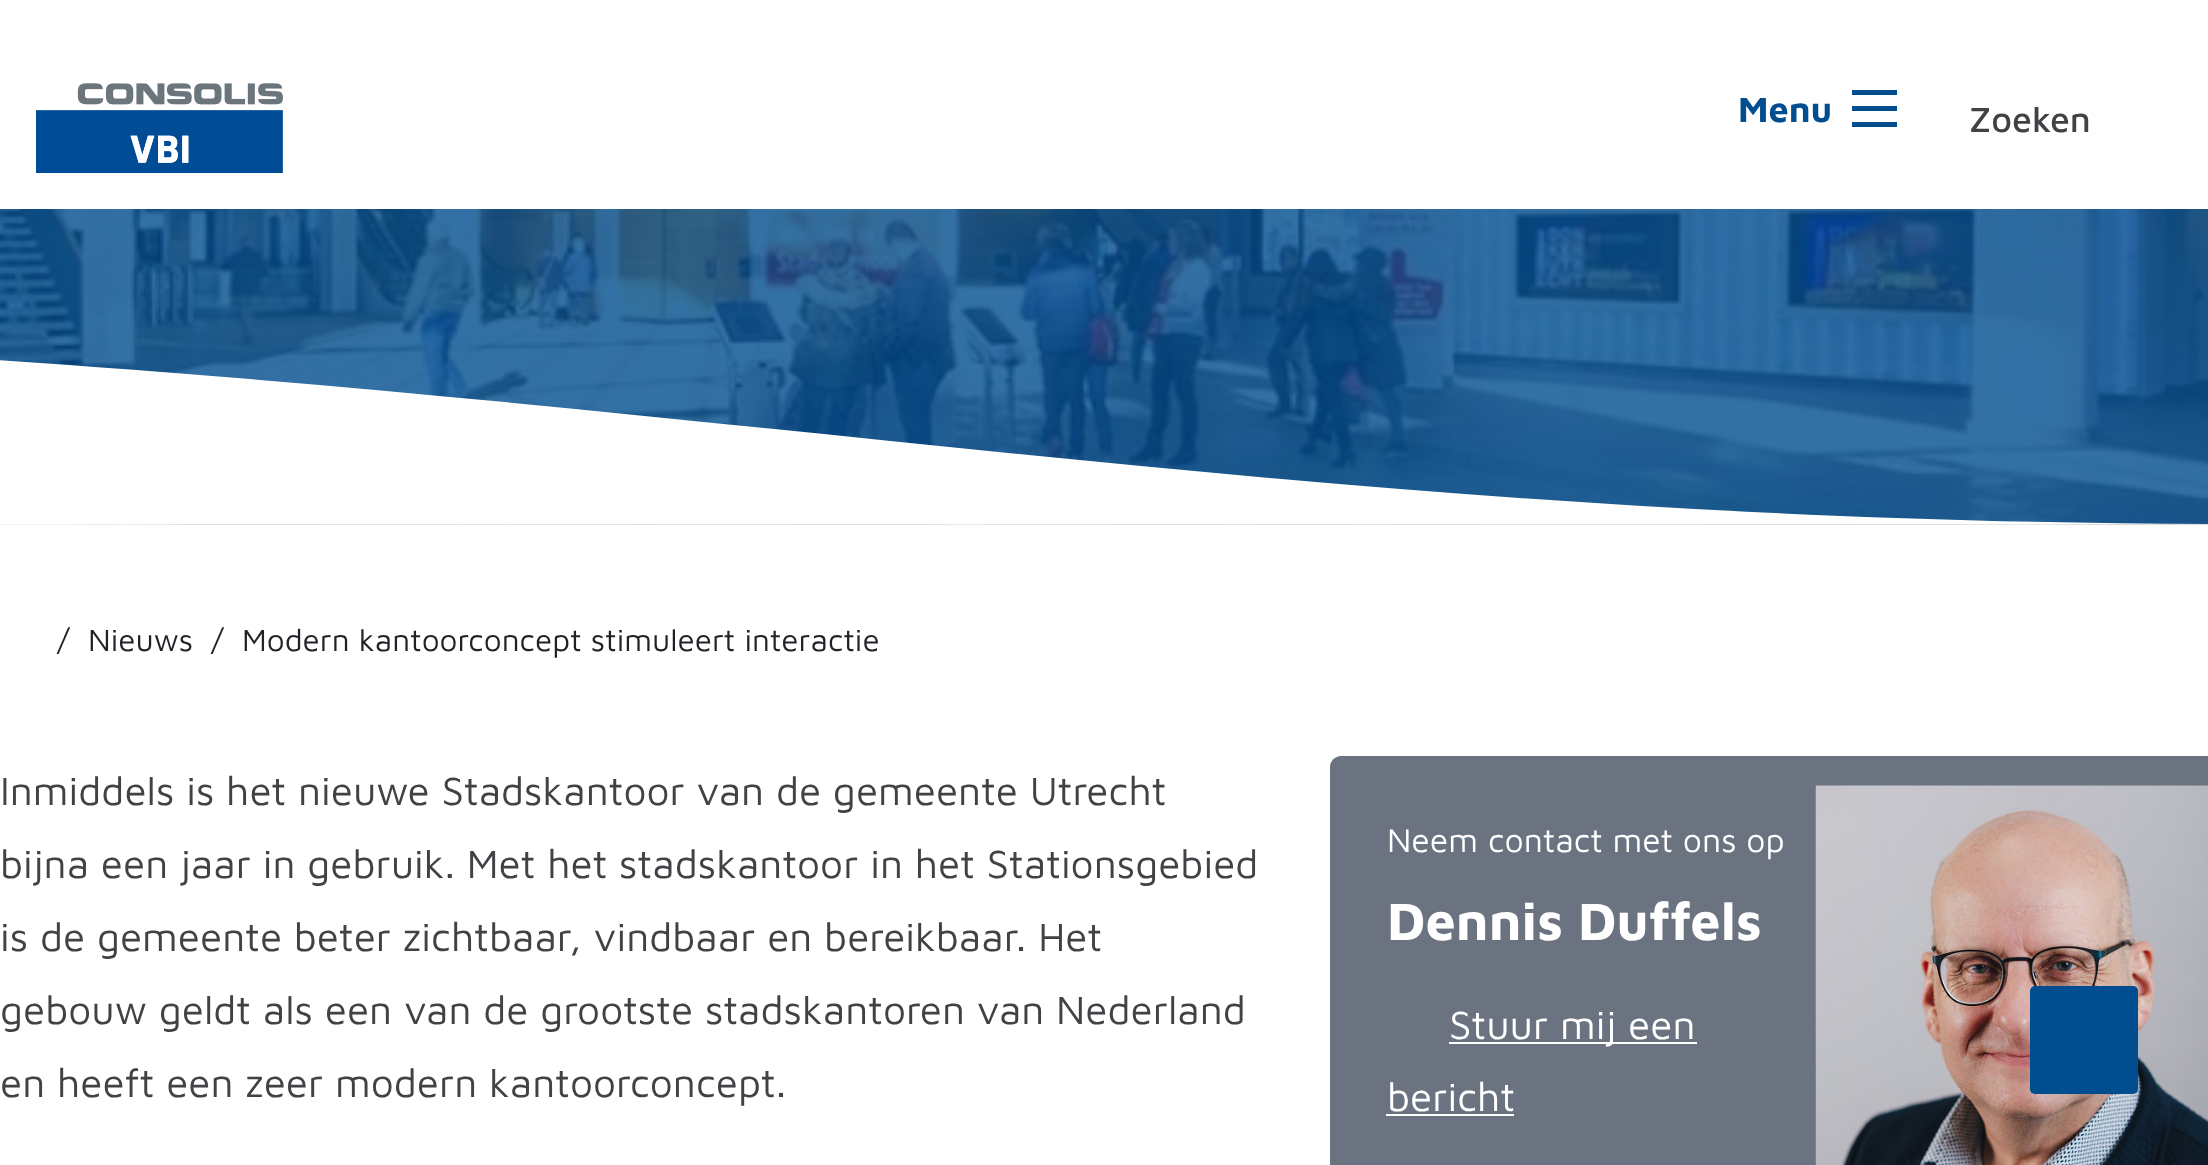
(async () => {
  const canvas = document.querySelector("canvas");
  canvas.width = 2208;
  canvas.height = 1165;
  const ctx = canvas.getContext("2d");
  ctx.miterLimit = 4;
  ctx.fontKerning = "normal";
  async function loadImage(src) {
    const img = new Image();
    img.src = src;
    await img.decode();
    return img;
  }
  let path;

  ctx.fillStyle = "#ffffff";
  ctx.fillRect(0, 0, 2208, 1165);
  ctx.drawImage(await loadImage("img/1.png"), 36, 83, 247, 90);
  for (const [x, y, w, h, color] of [
    [1852, 122, 45, 5, "#004e8f"],
    [1852, 106, 45, 5, "#004e8f"],
    [1852, 90, 45, 5, "#004e8f"],
  ]) {
    ctx.fillStyle = color;
    ctx.fillRect(x, y, w, h);
  }
  ctx.drawImage(await loadImage("img/2.png"), 0, 209, 2208, 316);
  ctx.drawImage(await loadImage("img/3.png"), 0, 360, 2208, 165);
  ctx.fillStyle = "#6b7280";
  path = new Path2D("M1341 756H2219V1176H1341C1335 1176 1330 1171 1330 1165V767C1330 761 1335 756 1341 756Z");
  ctx.fill(path);
  ctx.fillStyle = "#ffffff";
  ctx.fillRect(1449, 1042, 248, 2);
  ctx.fillRect(1386, 1114, 128, 2);
  ctx.drawImage(await loadImage("img/4.png"), 1815, 785, 393, 380);
  ctx.fillStyle = "#004e8f";
  ctx.beginPath();
  ctx.roundRect(2030, 986, 108, 108, 5);
  ctx.fill();
  ctx.font = "bold 36px Maven Pro";
  ctx.fillText("Menu", 1738, 122);
  ctx.font = "500 36px Maven Pro";
  ctx.fillStyle = "#414146";
  ctx.fillText("Zoeken", 1969, 132);
  ctx.font = "31.5px Maven Pro";
  ctx.fillStyle = "#1f2227";
  for (const [text, x, y] of [
    ["/", 57, 651],
    ["Nieuws", 88, 651],
    ["/", 211, 651],
    ["Modern kantoorconcept stimuleert interactie", 242, 651],
  ]) {
    ctx.fillText(text, x, y);
  }
  ctx.font = "40.5px Maven Pro";
  ctx.fillStyle = "#414146";
  for (const [text, x, y] of [
    ["Inmiddels is het nieuwe Stadskantoor van de gemeente Utrecht", 0, 805],
    ["bijna een jaar in gebruik. Met het stadskantoor in het Stationsgebied", 0, 878],
    ["is de gemeente beter zichtbaar, vindbaar en bereikbaar. Het", 0, 951],
    ["gebouw geldt als een van de grootste stadskantoren van Nederland", 0, 1024],
    ["en heeft een zeer modern kantoorconcept.", 0, 1097],
  ]) {
    ctx.fillText(text, x, y);
  }
  ctx.font = "33.75px Maven Pro";
  ctx.fillStyle = "#ffffff";
  ctx.fillText("Neem contact met ons op", 1387, 852);
  ctx.font = "bold 54px Maven Pro";
  ctx.fillText("Dennis Duffels", 1387, 940);
  ctx.font = "40.5px Maven Pro";
  ctx.fillText("Stuur mij een", 1449, 1039);
  ctx.fillText("bericht", 1387, 1111);
})();
